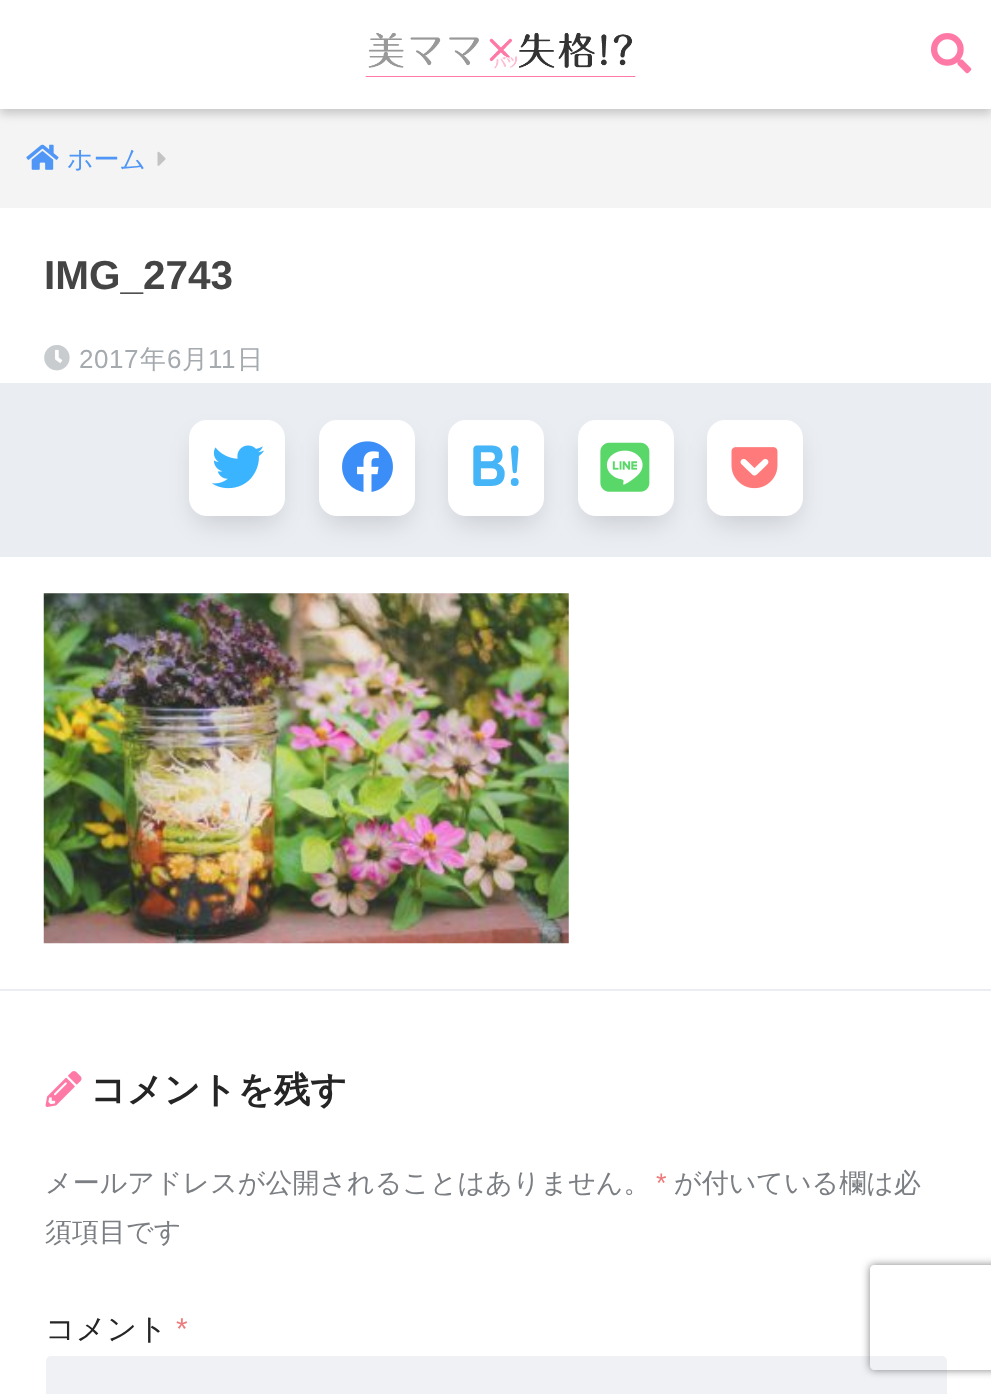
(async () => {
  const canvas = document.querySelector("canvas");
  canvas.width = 991;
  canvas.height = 1394;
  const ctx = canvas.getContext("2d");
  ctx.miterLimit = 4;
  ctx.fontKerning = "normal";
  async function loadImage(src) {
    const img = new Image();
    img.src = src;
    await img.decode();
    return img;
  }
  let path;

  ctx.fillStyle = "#ffffff";
  ctx.fillRect(0, 0, 991, 1394);
  ctx.fillStyle = "#f4f4f4";
  ctx.fillRect(0, 109, 991, 99);
  ctx.fillStyle = "rgba(0, 0, 0, 0.18)";
  ctx.filter = "blur(5px)";
  ctx.beginPath();
  ctx.rect(0, 5, 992, 109);
  ctx.fill();
  ctx.filter = "none";
  ctx.fillStyle = "#ffffff";
  ctx.fillRect(0, 0, 991, 109);
  ctx.drawImage(await loadImage("img/1.png"), 365, 32, 271, 45);
  ctx.drawImage(await loadImage("img/2.png"), 931, 33, 41, 41);
  ctx.drawImage(await loadImage("img/3.png"), 26, 144, 33, 26);
  ctx.drawImage(await loadImage("img/4.png"), 157, 151, 9, 15);
  ctx.drawImage(await loadImage("img/5.png"), 44, 345, 26, 26);
  ctx.fillStyle = "#eaedf2";
  ctx.fillRect(0, 383, 991, 174);
  ctx.fillStyle = "rgba(0, 0, 0, 0.15)";
  ctx.filter = "blur(13px)";
  ctx.beginPath();
  ctx.roundRect(196, 439, 82, 83, 11);
  ctx.fill();
  ctx.filter = "none";
  ctx.fillStyle = "#ffffff";
  ctx.beginPath();
  ctx.roundRect(189, 420, 96, 96, 18);
  ctx.fill();
  ctx.drawImage(await loadImage("img/6.png"), 212, 445, 53, 44);
  ctx.fillStyle = "rgba(0, 0, 0, 0.15)";
  ctx.filter = "blur(13px)";
  ctx.beginPath();
  ctx.roundRect(326, 439, 82, 83, 11);
  ctx.fill();
  ctx.filter = "none";
  ctx.fillStyle = "#ffffff";
  ctx.beginPath();
  ctx.roundRect(319, 420, 96, 96, 18);
  ctx.fill();
  ctx.drawImage(await loadImage("img/7.png"), 342, 441, 51, 51);
  ctx.fillStyle = "rgba(0, 0, 0, 0.15)";
  ctx.filter = "blur(13px)";
  ctx.beginPath();
  ctx.roundRect(455, 439, 82, 83, 11);
  ctx.fill();
  ctx.filter = "none";
  ctx.fillStyle = "#ffffff";
  ctx.beginPath();
  ctx.roundRect(448, 420, 96, 96, 18);
  ctx.fill();
  ctx.fillStyle = "rgba(0, 0, 0, 0.15)";
  ctx.filter = "blur(13px)";
  ctx.beginPath();
  ctx.roundRect(585, 439, 82, 83, 11);
  ctx.fill();
  ctx.filter = "none";
  ctx.fillStyle = "#ffffff";
  ctx.beginPath();
  ctx.roundRect(578, 420, 96, 96, 18);
  ctx.fill();
  ctx.drawImage(await loadImage("img/8.png"), 600, 442, 50, 50);
  ctx.fillStyle = "rgba(0, 0, 0, 0.15)";
  ctx.filter = "blur(13px)";
  ctx.beginPath();
  ctx.roundRect(714, 439, 82, 83, 11);
  ctx.fill();
  ctx.filter = "none";
  ctx.fillStyle = "#ffffff";
  ctx.beginPath();
  ctx.roundRect(707, 420, 96, 96, 18);
  ctx.fill();
  ctx.drawImage(await loadImage("img/9.png"), 731, 447, 47, 42);
  ctx.drawImage(await loadImage("img/10.png"), 43, 593, 526, 351);
  ctx.fillStyle = "#eaedf2";
  ctx.fillRect(0, 989, 991, 2);
  ctx.drawImage(await loadImage("img/11.png"), 45, 1071, 37, 36);
  ctx.fillStyle = "#eff1f5";
  ctx.beginPath();
  ctx.roundRect(46, 1356, 901, 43, 5);
  ctx.fill();
  ctx.save();
  path = new Path2D("M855 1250H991V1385H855ZM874 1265H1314C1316 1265 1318 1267 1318 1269V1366C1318 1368 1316 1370 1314 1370H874C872 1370 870 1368 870 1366V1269C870 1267 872 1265 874 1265Z");
  ctx.clip(path, "evenodd");
  ctx.fillStyle = "#808080";
  ctx.filter = "blur(4.5px)";
  ctx.beginPath();
  ctx.roundRect(870, 1265, 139, 105, 4);
  ctx.fill();
  ctx.filter = "none";
  ctx.restore();
  ctx.font = "500 26px WenQuanYi Zen Hei";
  ctx.fillStyle = "#4f96f6";
  ctx.fillText("ホーム", 67, 168);
  ctx.font = "bold 40.5px Liberation Sans";
  ctx.fillStyle = "#444444";
  ctx.fillText("IMG_2743", 44, 289);
  ctx.letterSpacing = "0.5px";
  ctx.font = "26px Liberation Sans";
  ctx.fillStyle = "#a5aaaf";
  ctx.fillText("2017", 79, 368);
  ctx.font = "500 26px WenQuanYi Zen Hei";
  ctx.fillText("年", 140, 368);
  ctx.font = "26px Liberation Sans";
  ctx.fillText("6", 167, 368);
  ctx.font = "500 26px WenQuanYi Zen Hei";
  ctx.fillText("月", 182, 368);
  ctx.font = "26px Liberation Sans";
  ctx.fillText("11", 208, 368);
  ctx.font = "500 26px WenQuanYi Zen Hei";
  ctx.fillText("日", 237, 368);
  ctx.letterSpacing = "0px";
  ctx.font = "bold 58px Quicksand";
  ctx.fillStyle = "#45b5f7";
  ctx.fillText("B!", 469, 486);
  ctx.font = "bold 36px WenQuanYi Zen Hei";
  ctx.fillStyle = "#252525";
  ctx.fillText("コメントを残す", 90, 1102);
  ctx.font = "500 27px WenQuanYi Zen Hei";
  ctx.fillStyle = "#7b7e82";
  ctx.fillText("メールアドレスが公開されることはありません。", 45, 1192);
  ctx.font = "27px Liberation Sans";
  ctx.fillStyle = "#ee7b7b";
  ctx.fillText("*", 656, 1192);
  ctx.font = "500 27px WenQuanYi Zen Hei";
  ctx.fillStyle = "#7b7e82";
  ctx.fillText("が付いている欄は必", 674, 1192);
  ctx.fillText("須項目です", 45, 1241);
  ctx.font = "500 30px WenQuanYi Zen Hei";
  ctx.fillStyle = "#252525";
  ctx.fillText("コメント", 45, 1339);
  ctx.font = "30px Liberation Sans";
  ctx.fillStyle = "#ee7b7b";
  ctx.fillText("*", 176, 1339);
})();
